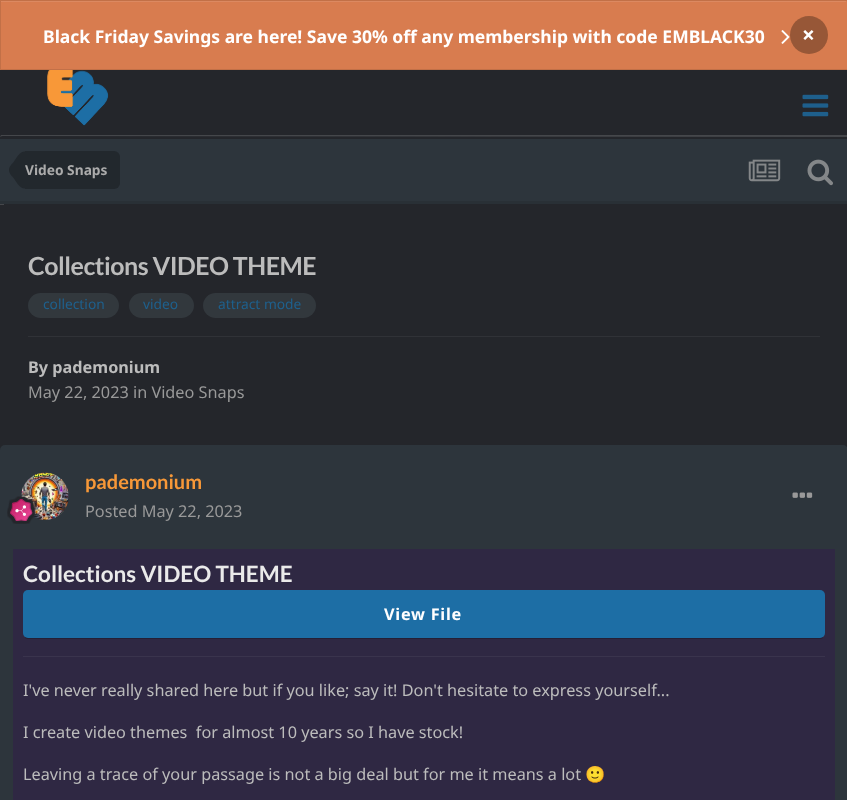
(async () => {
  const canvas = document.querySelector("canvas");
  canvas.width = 847;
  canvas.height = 800;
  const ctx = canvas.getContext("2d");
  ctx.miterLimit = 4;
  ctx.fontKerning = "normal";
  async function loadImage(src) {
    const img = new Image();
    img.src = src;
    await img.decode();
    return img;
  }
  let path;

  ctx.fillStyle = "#24262b";
  ctx.fillRect(0, 0, 847, 800);
  ctx.fillStyle = "#d87c4f";
  ctx.fillRect(1, 1, 846, 68);
  ctx.fillStyle = "#dc8961";
  ctx.fillRect(1, 1, 845, 1);
  ctx.strokeStyle = "#c27047";
  ctx.strokeRect(0.5, 0.5, 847, 69);
  ctx.drawImage(await loadImage("img/1.png"), 781, 30, 9, 14);
  ctx.fillStyle = "#975737";
  ctx.beginPath();
  ctx.arc(809, 35, 19, 0, Math.PI * 2);
  ctx.fill();
  ctx.drawImage(await loadImage("img/2.png"), 47, 70, 62, 56);
  ctx.drawImage(await loadImage("img/3.png"), 802, 94, 27, 23);
  ctx.fillStyle = "#45474b";
  path = new Path2D("M2 136L847 137V138C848 137 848 136 847 135H1L0 137Z");
  ctx.fill(path);
  ctx.fillStyle = "#2d353c";
  ctx.fillRect(0, 139, 847, 62);
  ctx.fillStyle = "#293036";
  ctx.fillRect(0, 201, 847, 3);
  ctx.fillStyle = "#22282d";
  ctx.beginPath();
  ctx.roundRect(25, 151, 95, 38, [0, 6, 6, 0]);
  ctx.fill();
  path = new Path2D("M25 170V188.5C19.5 188.5 16.5 182 14 178.5C12 176 9 173.5 9 170ZM25 170H9C9 166.5 12 164 14 161.5C16.5 158 19.5 151.5 25 151.5Z");
  ctx.fill(path);
  ctx.drawImage(await loadImage("img/4.png"), 748, 159, 33, 23);
  ctx.drawImage(await loadImage("img/5.png"), 807, 159, 26, 27);
  ctx.fillStyle = "#45474b";
  ctx.fillRect(0, 204, 4, 1);
  ctx.fillStyle = "#32383d";
  ctx.beginPath();
  ctx.roundRect(28, 293, 91, 25, 12.5);
  ctx.fill();
  ctx.beginPath();
  ctx.roundRect(129, 293, 65, 25, 12.5);
  ctx.fill();
  ctx.beginPath();
  ctx.roundRect(203, 293, 113, 25, 12.5);
  ctx.fill();
  ctx.fillStyle = "#303237";
  ctx.fillRect(28, 336, 792, 1);
  ctx.fillStyle = "#2d353c";
  ctx.beginPath();
  ctx.roundRect(0, 445, 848, 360, 5);
  ctx.fill();
  ctx.drawImage(await loadImage("img/6.png"), 21, 472, 48, 48);
  ctx.drawImage(await loadImage("img/7.png"), 7, 496, 29, 28);
  ctx.drawImage(await loadImage("img/8.png"), 792, 492, 21, 6);
  ctx.fillStyle = "#2f2843";
  ctx.fillRect(13, 549, 822, 251);
  ctx.fillStyle = "rgba(0, 0, 0, 0.2)";
  ctx.filter = "blur(0.5px)";
  ctx.beginPath();
  ctx.roundRect(25, 596, 798, 43, 2.5);
  ctx.fill();
  ctx.filter = "none";
  ctx.fillStyle = "#1d6ea5";
  ctx.beginPath();
  ctx.roundRect(23, 590, 802, 48, 5);
  ctx.fill();
  ctx.fillStyle = "#3a344d";
  ctx.fillRect(23, 656, 802, 1);
  ctx.font = "bold 17.5px Noto Sans";
  ctx.fillStyle = "#ffffff";
  ctx.fillText("Black Friday Savings are here! Save 30% off any membership with code EMBLACK30", 43, 43);
  ctx.font = "bold 22.5px Noto Sans";
  ctx.fillText("×", 802, 43);
  ctx.font = "bold 13.75px Noto Sans";
  ctx.fillStyle = "#ababab";
  ctx.fillText("Video Snaps", 25, 175);
  ctx.letterSpacing = "-0.5px";
  ctx.font = "bold 25px Lato";
  ctx.fillStyle = "#bcbcbc";
  ctx.fillText("Collections VIDEO THEME", 28, 275);
  ctx.letterSpacing = "0px";
  ctx.font = "13.75px Noto Sans";
  ctx.fillStyle = "#1e608d";
  for (const [text, x, y] of [
    ["collection", 43, 309],
    ["video", 143, 309],
    ["attract mode", 218, 309],
  ]) {
    ctx.fillText(text, x, y);
  }
  ctx.font = "bold 16.25px Noto Sans";
  ctx.fillStyle = "#bcbcbc";
  ctx.fillText("By pademonium", 28, 373);
  ctx.font = "16.25px Noto Sans";
  ctx.fillStyle = "#999999";
  ctx.fillText("May 22, 2023 in Video Snaps", 28, 398);
  ctx.font = "bold 20px Lato";
  ctx.fillStyle = "#f79838";
  ctx.fillText("pademonium", 85, 489);
  ctx.font = "16.25px Noto Sans";
  ctx.fillStyle = "#999999";
  ctx.fillText("Posted May 22, 2023", 85, 517);
  ctx.font = "bold 22.5px Lato";
  ctx.fillStyle = "#eaeaea";
  ctx.fillText("Collections VIDEO THEME", 23, 582);
  ctx.letterSpacing = "0.75px";
  ctx.font = "bold 16.25px Noto Sans";
  ctx.fillStyle = "#ffffff";
  ctx.fillText("View File", 384, 620);
  ctx.letterSpacing = "0px";
  ctx.font = "16.25px Noto Sans";
  ctx.fillStyle = "#bcbcbc";
  for (const [text, x, y] of [
    ["I've never really shared here but if you like; say it! Don't hesitate to express yourself...", 23, 696],
    ["I create video themes  for almost 10 years so I have stock!", 23, 738],
    ["Leaving a trace of your passage is not a big deal but for me it means a lot", 23, 780],
  ]) {
    ctx.fillText(text, x, y);
  }
  ctx.font = "16.25px Noto Color Emoji";
  ctx.fillText("🙂", 585, 780);
})();
